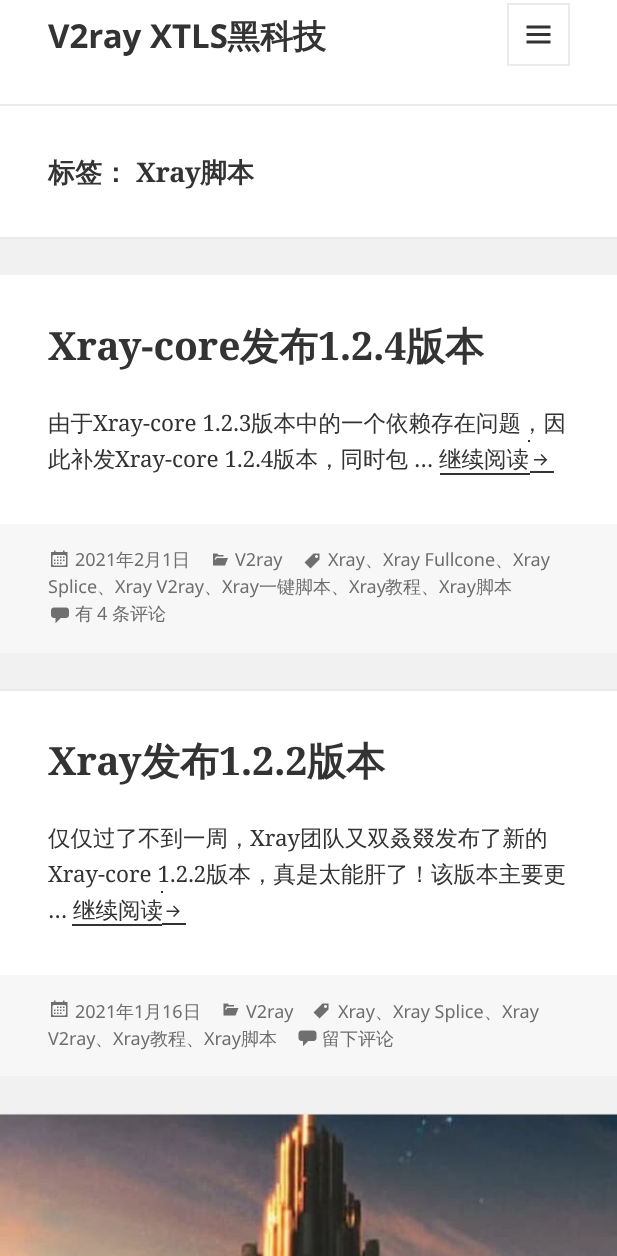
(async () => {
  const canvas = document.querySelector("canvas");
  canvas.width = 617;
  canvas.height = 1256;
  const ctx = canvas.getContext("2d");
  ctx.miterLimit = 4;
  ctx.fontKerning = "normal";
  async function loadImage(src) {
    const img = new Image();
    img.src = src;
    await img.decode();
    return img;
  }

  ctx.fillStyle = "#f1f1f1";
  ctx.fillRect(0, 0, 617, 1256);
  ctx.fillStyle = "#ffffff";
  ctx.fillRect(0, 0, 617, 104);
  ctx.fillStyle = "#ebebeb";
  ctx.fillRect(0, 104, 617, 2);
  ctx.strokeStyle = "#ebebeb";
  ctx.lineWidth = 2;
  ctx.strokeRect(508, 4, 61, 61);
  ctx.drawImage(await loadImage("img/1.png"), 526, 25, 25, 19);
  for (const [x, y, w, h, color] of [
    [0, 106, 617, 131, "#ffffff"],
    [0, 237, 617, 2, "#ebebeb"],
    [0, 275, 617, 249, "#ffffff"],
    [440, 473, 90, 2, "#333333"],
    [528, 440, 2, 2, "#333333"],
    [530, 471, 24, 2, "#333333"],
  ]) {
    ctx.fillStyle = color;
    ctx.fillRect(x, y, w, h);
  }
  ctx.drawImage(await loadImage("img/2.png"), 534, 454, 14, 12);
  ctx.fillStyle = "#f7f7f7";
  ctx.fillRect(0, 524, 617, 129);
  ctx.drawImage(await loadImage("img/3.png"), 51, 550, 17, 17);
  ctx.drawImage(await loadImage("img/4.png"), 304, 553, 16, 16);
  ctx.drawImage(await loadImage("img/5.png"), 213, 553, 15, 13);
  ctx.drawImage(await loadImage("img/6.png"), 51, 607, 18, 17);
  for (const [x, y, w, h, color] of [
    [0, 691, 617, 284, "#ffffff"],
    [0, 689, 617, 2, "#ebebeb"],
    [72, 924, 90, 2, "#333333"],
    [161, 891, 2, 2, "#333333"],
    [162, 923, 24, 2, "#333333"],
  ]) {
    ctx.fillStyle = color;
    ctx.fillRect(x, y, w, h);
  }
  ctx.drawImage(await loadImage("img/7.png"), 166, 905, 14, 12);
  ctx.fillStyle = "#f7f7f7";
  ctx.fillRect(0, 975, 617, 101);
  ctx.drawImage(await loadImage("img/3.png"), 51, 1000, 17, 17);
  ctx.drawImage(await loadImage("img/4.png"), 313, 1003, 16, 16);
  ctx.drawImage(await loadImage("img/8.png"), 223, 1003, 16, 13);
  ctx.drawImage(await loadImage("img/9.png"), 298, 1030, 19, 17);
  ctx.fillStyle = "#ebebeb";
  ctx.fillRect(0, 1113, 617, 2);
  ctx.drawImage(await loadImage("img/10.png"), 0, 1114, 617, 142);
  ctx.font = "bold 33px Noto Sans";
  ctx.fillStyle = "#333333";
  ctx.fillText("V2ray XTLS", 48, 48);
  ctx.font = "bold 33px WenQuanYi Zen Hei";
  ctx.fillText("黑科技", 227, 48);
  ctx.font = "bold 27px WenQuanYi Zen Hei";
  ctx.fillText("标签：", 48, 182);
  ctx.font = "bold 27px Noto Serif";
  ctx.fillText("Xray", 136, 182);
  ctx.font = "bold 27px WenQuanYi Zen Hei";
  ctx.fillText("脚本", 200, 182);
  ctx.font = "bold 39px Noto Serif";
  ctx.fillText("Xray-core", 48, 360);
  ctx.font = "bold 39px WenQuanYi Zen Hei";
  ctx.fillText("发布", 240, 360);
  ctx.font = "bold 39px Noto Serif";
  ctx.fillText("1.2.4", 318, 360);
  ctx.font = "bold 39px WenQuanYi Zen Hei";
  ctx.fillText("版本", 406, 360);
  ctx.font = "500 22.5px WenQuanYi Zen Hei";
  ctx.fillText("由于", 48, 431);
  ctx.font = "22.5px Noto Serif";
  ctx.fillText("Xray-core 1.2.3", 93, 431);
  ctx.font = "500 22.5px WenQuanYi Zen Hei";
  ctx.fillText("版本中的一个依赖存在问题，因", 251, 431);
  ctx.fillText("此补发", 48, 467);
  ctx.font = "22.5px Noto Serif";
  ctx.fillText("Xray-core 1.2.4", 115, 467);
  ctx.font = "500 22.5px WenQuanYi Zen Hei";
  ctx.fillText("版本，同时包", 273, 467);
  ctx.font = "22.5px Noto Serif";
  ctx.fillText("…", 414, 467);
  ctx.font = "500 22.5px WenQuanYi Zen Hei";
  ctx.fillText("继续阅读", 439, 467);
  ctx.font = "18px Noto Sans";
  ctx.fillStyle = "#6e6e6e";
  ctx.fillText("2021", 75, 566);
  ctx.font = "500 18px WenQuanYi Zen Hei";
  ctx.fillText("年", 116, 566);
  ctx.font = "18px Noto Sans";
  ctx.fillText("2", 134, 566);
  ctx.font = "500 18px WenQuanYi Zen Hei";
  ctx.fillText("月", 144, 566);
  ctx.font = "18px Noto Sans";
  ctx.fillText("1", 162, 566);
  ctx.font = "500 18px WenQuanYi Zen Hei";
  ctx.fillText("日", 172, 566);
  ctx.font = "18px Noto Sans";
  ctx.fillText("Xray", 328, 566);
  ctx.font = "500 18px WenQuanYi Zen Hei";
  ctx.fillText("、", 365, 566);
  ctx.font = "18px Noto Sans";
  ctx.fillText("Xray Fullcone", 383, 566);
  ctx.font = "500 18px WenQuanYi Zen Hei";
  ctx.fillText("、", 495, 566);
  ctx.font = "18px Noto Sans";
  ctx.fillText("Xray", 513, 566);
  ctx.fillText("Splice", 48, 593);
  ctx.font = "500 18px WenQuanYi Zen Hei";
  ctx.fillText("、", 97, 593);
  ctx.font = "18px Noto Sans";
  ctx.fillText("Xray V2ray", 115, 593);
  ctx.font = "500 18px WenQuanYi Zen Hei";
  ctx.fillText("、", 204, 593);
  ctx.font = "18px Noto Sans";
  ctx.fillText("Xray", 222, 593);
  ctx.font = "500 18px WenQuanYi Zen Hei";
  ctx.fillText("一键脚本、", 259, 593);
  ctx.font = "18px Noto Sans";
  ctx.fillText("Xray", 349, 593);
  ctx.font = "500 18px WenQuanYi Zen Hei";
  ctx.fillText("教程、", 385, 593);
  ctx.font = "18px Noto Sans";
  ctx.fillText("Xray", 439, 593);
  ctx.font = "500 18px WenQuanYi Zen Hei";
  ctx.fillText("脚本", 476, 593);
  ctx.font = "18px Noto Sans";
  ctx.fillText("V2ray", 235, 566);
  ctx.font = "500 18px WenQuanYi Zen Hei";
  ctx.fillText("有", 75, 620);
  ctx.font = "18px Noto Sans";
  ctx.fillText("4", 97, 620);
  ctx.font = "500 18px WenQuanYi Zen Hei";
  ctx.fillText("条评论", 112, 620);
  ctx.font = "bold 39px Noto Serif";
  ctx.fillStyle = "#333333";
  ctx.fillText("Xray", 48, 775);
  ctx.font = "bold 39px WenQuanYi Zen Hei";
  ctx.fillText("发布", 141, 775);
  ctx.font = "bold 39px Noto Serif";
  ctx.fillText("1.2.2", 219, 775);
  ctx.font = "bold 39px WenQuanYi Zen Hei";
  ctx.fillText("版本", 307, 775);
  ctx.font = "500 22.5px WenQuanYi Zen Hei";
  ctx.fillText("仅仅过了不到一周，", 48, 846);
  ctx.font = "22.5px Noto Serif";
  ctx.fillText("Xray", 250, 846);
  ctx.font = "500 22.5px WenQuanYi Zen Hei";
  ctx.fillText("团队又双叒叕发布了新的", 300, 846);
  ctx.font = "22.5px Noto Serif";
  ctx.fillText("Xray-core 1.2.2", 48, 882);
  ctx.font = "500 22.5px WenQuanYi Zen Hei";
  ctx.fillText("版本，真是太能肝了！该版本主要更", 206, 882);
  ctx.font = "22.5px Noto Serif";
  ctx.fillText("…", 48, 918);
  ctx.font = "500 22.5px WenQuanYi Zen Hei";
  ctx.fillText("继续阅读", 73, 918);
  ctx.font = "18px Noto Sans";
  ctx.fillStyle = "#6e6e6e";
  ctx.fillText("2021", 75, 1018);
  ctx.font = "500 18px WenQuanYi Zen Hei";
  ctx.fillText("年", 116, 1018);
  ctx.font = "18px Noto Sans";
  ctx.fillText("1", 134, 1018);
  ctx.font = "500 18px WenQuanYi Zen Hei";
  ctx.fillText("月", 144, 1018);
  ctx.font = "18px Noto Sans";
  ctx.fillText("16", 162, 1018);
  ctx.font = "500 18px WenQuanYi Zen Hei";
  ctx.fillText("日", 183, 1018);
  ctx.font = "18px Noto Sans";
  ctx.fillText("Xray", 338, 1018);
  ctx.font = "500 18px WenQuanYi Zen Hei";
  ctx.fillText("、", 375, 1018);
  ctx.font = "18px Noto Sans";
  ctx.fillText("Xray Splice", 393, 1018);
  ctx.font = "500 18px WenQuanYi Zen Hei";
  ctx.fillText("、", 484, 1018);
  ctx.font = "18px Noto Sans";
  ctx.fillText("Xray", 502, 1018);
  ctx.fillText("V2ray", 48, 1045);
  ctx.font = "500 18px WenQuanYi Zen Hei";
  ctx.fillText("、", 95, 1045);
  ctx.font = "18px Noto Sans";
  ctx.fillText("Xray", 113, 1045);
  ctx.font = "500 18px WenQuanYi Zen Hei";
  ctx.fillText("教程、", 150, 1045);
  ctx.font = "18px Noto Sans";
  ctx.fillText("Xray", 204, 1045);
  ctx.font = "500 18px WenQuanYi Zen Hei";
  ctx.fillText("脚本", 241, 1045);
  ctx.font = "18px Noto Sans";
  ctx.fillText("V2ray", 246, 1018);
  ctx.font = "500 18px WenQuanYi Zen Hei";
  ctx.fillText("留下评论", 322, 1045);
})();
